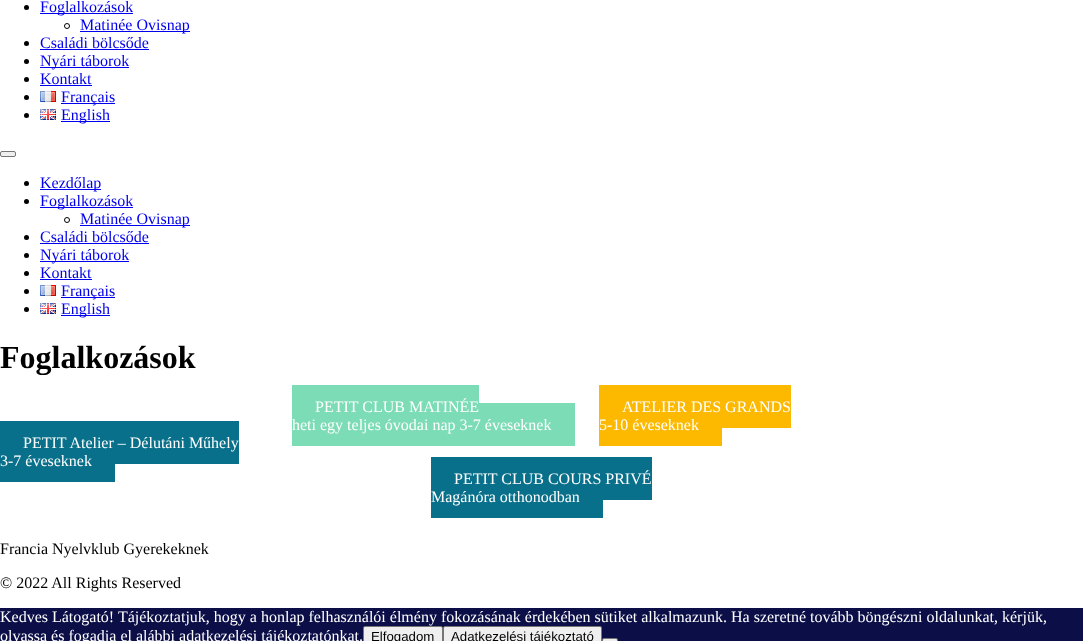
(async () => {
  const canvas = document.querySelector("canvas");
  canvas.width = 1083;
  canvas.height = 641;
  const ctx = canvas.getContext("2d");
  ctx.miterLimit = 4;
  ctx.fontKerning = "normal";
  async function loadImage(src) {
    const img = new Image();
    img.src = src;
    await img.decode();
    return img;
  }

  ctx.fillStyle = "#ffffff";
  ctx.fillRect(0, 0, 1083, 641);
  ctx.fillStyle = "#000000";
  ctx.beginPath();
  ctx.arc(26.5, 7.5, 2.5, 0, Math.PI * 2);
  ctx.fill();
  ctx.fillStyle = "#0000ee";
  ctx.fillRect(40, 13, 93, 1);
  ctx.beginPath();
  ctx.arc(67, 26, 2.5, 0, Math.PI * 2);
  ctx.strokeStyle = "#000000";
  ctx.stroke();
  ctx.fillRect(80, 31, 110, 1);
  ctx.fillStyle = "#000000";
  ctx.beginPath();
  ctx.arc(26.5, 43.5, 2.5, 0, Math.PI * 2);
  ctx.fill();
  ctx.fillStyle = "#0000ee";
  ctx.fillRect(40, 49, 109, 1);
  ctx.fillStyle = "#000000";
  ctx.beginPath();
  ctx.arc(26.5, 61.5, 2.5, 0, Math.PI * 2);
  ctx.fill();
  ctx.fillStyle = "#0000ee";
  ctx.fillRect(40, 67, 89, 1);
  ctx.fillStyle = "#000000";
  ctx.beginPath();
  ctx.arc(26.5, 79.5, 2.5, 0, Math.PI * 2);
  ctx.fill();
  ctx.fillStyle = "#0000ee";
  ctx.fillRect(40, 85, 52, 1);
  ctx.fillStyle = "#000000";
  ctx.beginPath();
  ctx.arc(26.5, 97.5, 2.5, 0, Math.PI * 2);
  ctx.fill();
  ctx.drawImage(await loadImage("img/1.png"), 40, 91, 16, 11);
  ctx.fillStyle = "#0000ee";
  ctx.fillRect(61, 103, 54, 1);
  ctx.fillStyle = "#000000";
  ctx.beginPath();
  ctx.arc(26.5, 115.5, 2.5, 0, Math.PI * 2);
  ctx.fill();
  ctx.drawImage(await loadImage("img/2.png"), 40, 109, 16, 11);
  ctx.fillStyle = "#0000ee";
  ctx.fillRect(61, 121, 49, 1);
  ctx.fillStyle = "#efefef";
  ctx.beginPath();
  ctx.roundRect(0.5, 151.5, 15, 5, 1.5);
  ctx.fill();
  ctx.strokeStyle = "#767676";
  ctx.stroke();
  ctx.fillStyle = "#000000";
  ctx.beginPath();
  ctx.arc(26.5, 183.5, 2.5, 0, Math.PI * 2);
  ctx.fill();
  ctx.fillStyle = "#0000ee";
  ctx.fillRect(40, 189, 61, 1);
  ctx.fillStyle = "#000000";
  ctx.beginPath();
  ctx.arc(26.5, 201.5, 2.5, 0, Math.PI * 2);
  ctx.fill();
  ctx.fillStyle = "#0000ee";
  ctx.fillRect(40, 207, 93, 1);
  ctx.beginPath();
  ctx.arc(67, 220, 2.5, 0, Math.PI * 2);
  ctx.strokeStyle = "#000000";
  ctx.stroke();
  ctx.fillRect(80, 225, 110, 1);
  ctx.fillStyle = "#000000";
  ctx.beginPath();
  ctx.arc(26.5, 237.5, 2.5, 0, Math.PI * 2);
  ctx.fill();
  ctx.fillStyle = "#0000ee";
  ctx.fillRect(40, 243, 109, 1);
  ctx.fillStyle = "#000000";
  ctx.beginPath();
  ctx.arc(26.5, 255.5, 2.5, 0, Math.PI * 2);
  ctx.fill();
  ctx.fillStyle = "#0000ee";
  ctx.fillRect(40, 261, 89, 1);
  ctx.fillStyle = "#000000";
  ctx.beginPath();
  ctx.arc(26.5, 273.5, 2.5, 0, Math.PI * 2);
  ctx.fill();
  ctx.fillStyle = "#0000ee";
  ctx.fillRect(40, 279, 52, 1);
  ctx.fillStyle = "#000000";
  ctx.beginPath();
  ctx.arc(26.5, 291.5, 2.5, 0, Math.PI * 2);
  ctx.fill();
  ctx.drawImage(await loadImage("img/1.png"), 40, 285, 16, 11);
  ctx.fillStyle = "#0000ee";
  ctx.fillRect(61, 297, 54, 1);
  ctx.fillStyle = "#000000";
  ctx.beginPath();
  ctx.arc(26.5, 309.5, 2.5, 0, Math.PI * 2);
  ctx.fill();
  ctx.drawImage(await loadImage("img/2.png"), 40, 303, 16, 11);
  for (const [x, y, w, h, color] of [
    [61, 315, 49, 1, "#0000ee"],
    [292, 385, 187, 18, "#7bdcb5"],
    [292, 403, 283, 43, "#7bdcb5"],
    [599, 385, 192, 43, "#fcb900"],
    [599, 428, 123, 18, "#fcb900"],
    [0, 421, 239, 43, "#08708a"],
    [0, 464, 115, 18, "#08708a"],
    [431, 457, 221, 43, "#08708a"],
    [431, 500, 172, 18, "#08708a"],
    [0, 608, 1083, 33, "#0b0e47"],
  ]) {
    ctx.fillStyle = color;
    ctx.fillRect(x, y, w, h);
  }
  ctx.fillStyle = "#efefef";
  ctx.beginPath();
  ctx.roundRect(363.5, 626.5, 79, 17, 1.5);
  ctx.fill();
  ctx.strokeStyle = "#767676";
  ctx.stroke();
  ctx.beginPath();
  ctx.roundRect(443.5, 626.5, 158, 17, 1.5);
  ctx.fill();
  ctx.stroke();
  ctx.beginPath();
  ctx.roundRect(602.5, 638.5, 15, 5, 1.5);
  ctx.fill();
  ctx.stroke();
  ctx.font = "16px Liberation Serif";
  ctx.fillStyle = "#0000ee";
  for (const [text, x, y] of [
    ["Foglalkozások", 40, 12],
    ["Matinée Ovisnap", 80, 30],
    ["Családi bölcsőde", 40, 48],
    ["Nyári táborok", 40, 66],
    ["Kontakt", 40, 84],
    ["Français", 61, 102],
    ["English", 61, 120],
    ["Kezdőlap", 40, 188],
    ["Foglalkozások", 40, 206],
    ["Matinée Ovisnap", 80, 224],
    ["Családi bölcsőde", 40, 242],
    ["Nyári táborok", 40, 260],
    ["Kontakt", 40, 278],
    ["Français", 61, 296],
    ["English", 61, 314],
  ]) {
    ctx.fillText(text, x, y);
  }
  ctx.font = "bold 32px Liberation Serif";
  ctx.fillStyle = "#000000";
  ctx.fillText("Foglalkozások", 0, 368);
  ctx.font = "16px Liberation Serif";
  ctx.fillStyle = "#ffffff";
  for (const [text, x, y] of [
    ["PETIT CLUB MATINÉE", 315, 412],
    ["heti egy teljes óvodai nap 3-7 éveseknek", 292, 430],
    ["ATELIER DES GRANDS", 622, 412],
    ["5-10 éveseknek", 599, 430],
    ["PETIT Atelier – Délutáni Műhely", 23, 448],
    ["3-7 éveseknek", 0, 466],
    ["PETIT CLUB COURS PRIVÉ", 454, 484],
    ["Magánóra otthonodban", 431, 502],
  ]) {
    ctx.fillText(text, x, y);
  }
  ctx.fillStyle = "#000000";
  ctx.fillText("Francia Nyelvklub Gyerekeknek", 0, 554);
  ctx.fillText("© 2022 All Rights Reserved", 0, 588);
  ctx.fillStyle = "#ffffff";
  ctx.fillText("Kedves Látogató! Tájékoztatjuk, hogy a honlap felhasználói élmény fokozásának érdekében sütiket alkalmazunk. Ha szeretné tovább böngészni oldalunkat, kérjük,", 0, 622);
  ctx.fillText("olvassa és fogadja el alábbi adatkezelési tájékoztatónkat.", 0, 641);
  ctx.font = "13.25px Liberation Sans";
  ctx.fillStyle = "#000000";
  ctx.fillText("Elfogadom", 371, 641);
  ctx.fillText("Adatkezelési tájékoztató", 451, 641);
})();
